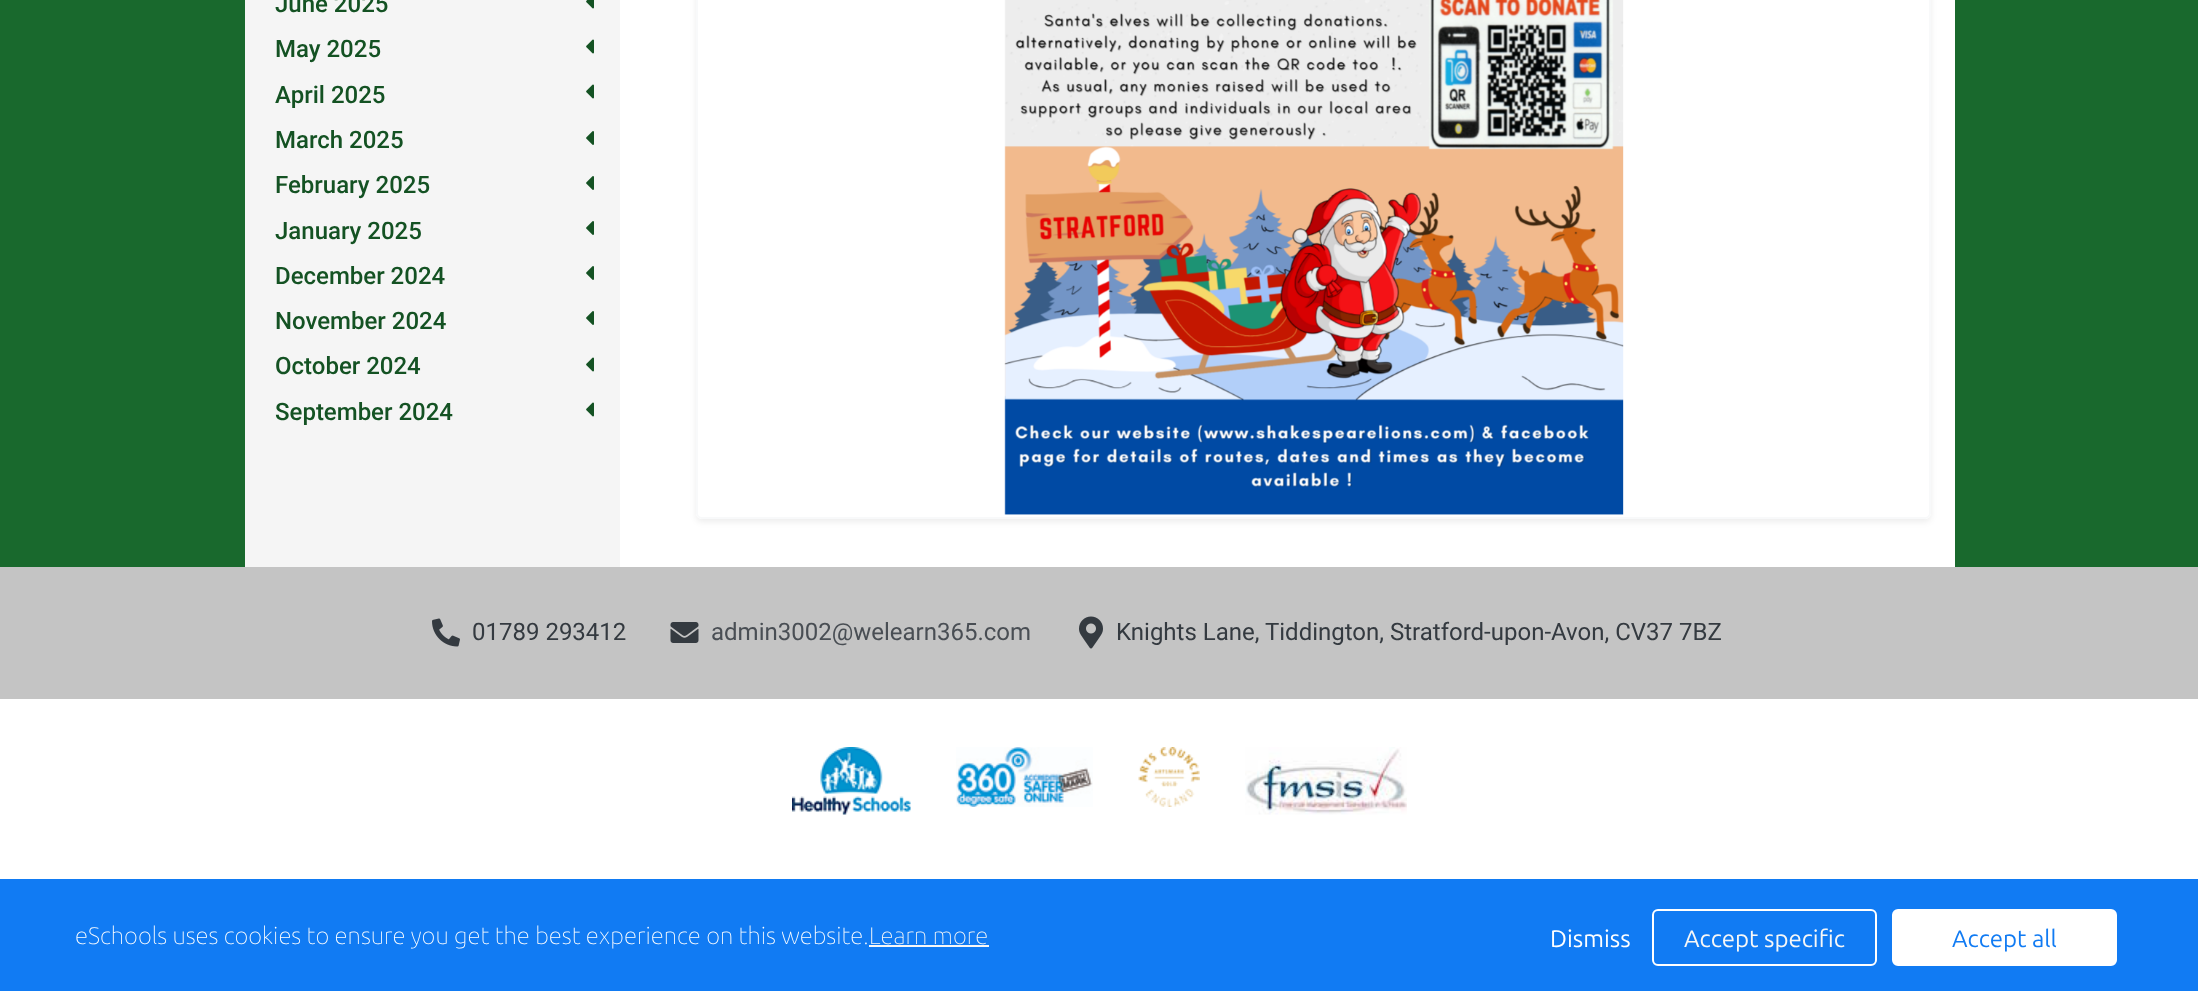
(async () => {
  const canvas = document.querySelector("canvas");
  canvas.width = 2198;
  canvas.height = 991;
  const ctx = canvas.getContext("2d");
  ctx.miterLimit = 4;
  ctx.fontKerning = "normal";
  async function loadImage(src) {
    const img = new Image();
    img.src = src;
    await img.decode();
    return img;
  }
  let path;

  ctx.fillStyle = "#ffffff";
  ctx.fillRect(0, 0, 2198, 991);
  for (const [x, y, w, h, color] of [
    [0, 0, 2198, 567, "#19692d"],
    [620, 0, 1335, 567, "#ffffff"],
    [245, 0, 375, 567, "#f5f5f5"],
  ]) {
    ctx.fillStyle = color;
    ctx.fillRect(x, y, w, h);
  }
  ctx.drawImage(await loadImage("img/1.png"), 586, 0, 8, 9);
  ctx.drawImage(await loadImage("img/2.png"), 586, 39, 8, 15);
  ctx.drawImage(await loadImage("img/2.png"), 586, 84, 8, 15);
  ctx.drawImage(await loadImage("img/3.png"), 586, 131, 8, 14);
  ctx.drawImage(await loadImage("img/3.png"), 586, 176, 8, 14);
  ctx.drawImage(await loadImage("img/3.png"), 586, 221, 8, 14);
  ctx.drawImage(await loadImage("img/3.png"), 586, 266, 8, 14);
  ctx.drawImage(await loadImage("img/3.png"), 586, 311, 8, 14);
  ctx.drawImage(await loadImage("img/2.png"), 586, 357, 8, 15);
  ctx.drawImage(await loadImage("img/2.png"), 586, 402, 8, 15);
  ctx.save();
  path = new Path2D("M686 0H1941V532H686ZM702-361H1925C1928.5-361 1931-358.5 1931-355V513C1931 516.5 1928.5 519 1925 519H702C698.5 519 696 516.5 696 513V-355C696-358.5 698.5-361 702-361Z");
  ctx.clip(path, "evenodd");
  ctx.fillStyle = "rgba(0, 0, 0, 0.07)";
  ctx.filter = "blur(3px)";
  ctx.beginPath();
  ctx.roundRect(696, -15, 1235, 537, 6);
  ctx.fill();
  ctx.filter = "none";
  ctx.restore();
  ctx.beginPath();
  ctx.roundRect(697, -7, 1233, 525, 5);
  ctx.strokeStyle = "#f8f9fa";
  ctx.lineWidth = 2;
  ctx.stroke();
  ctx.drawImage(await loadImage("img/4.png"), 1004, 0, 620, 515);
  ctx.fillStyle = "#c4c4c4";
  ctx.fillRect(0, 567, 2198, 132);
  ctx.drawImage(await loadImage("img/5.png"), 432, 618, 28, 29);
  ctx.drawImage(await loadImage("img/6.png"), 670, 622, 29, 21);
  ctx.drawImage(await loadImage("img/7.png"), 1079, 616, 24, 33);
  ctx.drawImage(await loadImage("img/8.png"), 792, 747, 119, 68);
  ctx.drawImage(await loadImage("img/9.png"), 956, 747, 137, 60);
  ctx.drawImage(await loadImage("img/10.png"), 1138, 747, 62, 60);
  ctx.drawImage(await loadImage("img/11.png"), 1245, 747, 162, 68);
  ctx.fillStyle = "#117bf3";
  ctx.fillRect(0, 879, 2198, 112);
  ctx.fillStyle = "#f7f7f7";
  ctx.fillRect(869, 945, 120, 2);
  ctx.beginPath();
  ctx.roundRect(1653, 910, 223, 55, 5);
  ctx.strokeStyle = "#ffffff";
  ctx.stroke();
  ctx.fillStyle = "#ffffff";
  ctx.beginPath();
  ctx.roundRect(1893, 910, 223, 55, 5);
  ctx.fill();
  ctx.stroke();
  ctx.font = "500 24px Roboto";
  ctx.fillStyle = "#145223";
  for (const [text, x, y] of [
    ["June 2025", 275, 12],
    ["May 2025", 275, 57],
    ["April 2025", 275, 103],
    ["March 2025", 275, 148],
    ["February 2025", 275, 193],
    ["January 2025", 275, 239],
    ["December 2024", 275, 284],
    ["November 2024", 275, 329],
    ["October 2024", 275, 374],
    ["September 2024", 275, 420],
  ]) {
    ctx.fillText(text, x, y);
  }
  ctx.font = "24px Roboto";
  ctx.fillStyle = "#343a40";
  ctx.fillText("01789 293412", 472, 640);
  ctx.fillStyle = "#494e54";
  ctx.fillText("admin3002@welearn365.com", 711, 640);
  ctx.fillStyle = "#343a40";
  ctx.fillText("Knights Lane, Tiddington, Stratford-upon-Avon, CV37 7BZ", 1116, 640);
  ctx.font = "100 24px Ubuntu";
  ctx.fillStyle = "#ffffff";
  ctx.fillText("eSchools uses cookies to ensure you get the best experience on this website.", 75, 944);
  ctx.fillStyle = "#f7f7f7";
  ctx.fillText("Learn more", 869, 944);
  ctx.font = "24px Ubuntu";
  ctx.fillStyle = "#ffffff";
  ctx.fillText("Dismiss", 1550, 947);
  ctx.fillStyle = "#f7f7f7";
  ctx.fillText("Accept specific", 1684, 947);
  ctx.fillStyle = "#117bf3";
  ctx.fillText("Accept all", 1952, 947);
})();
